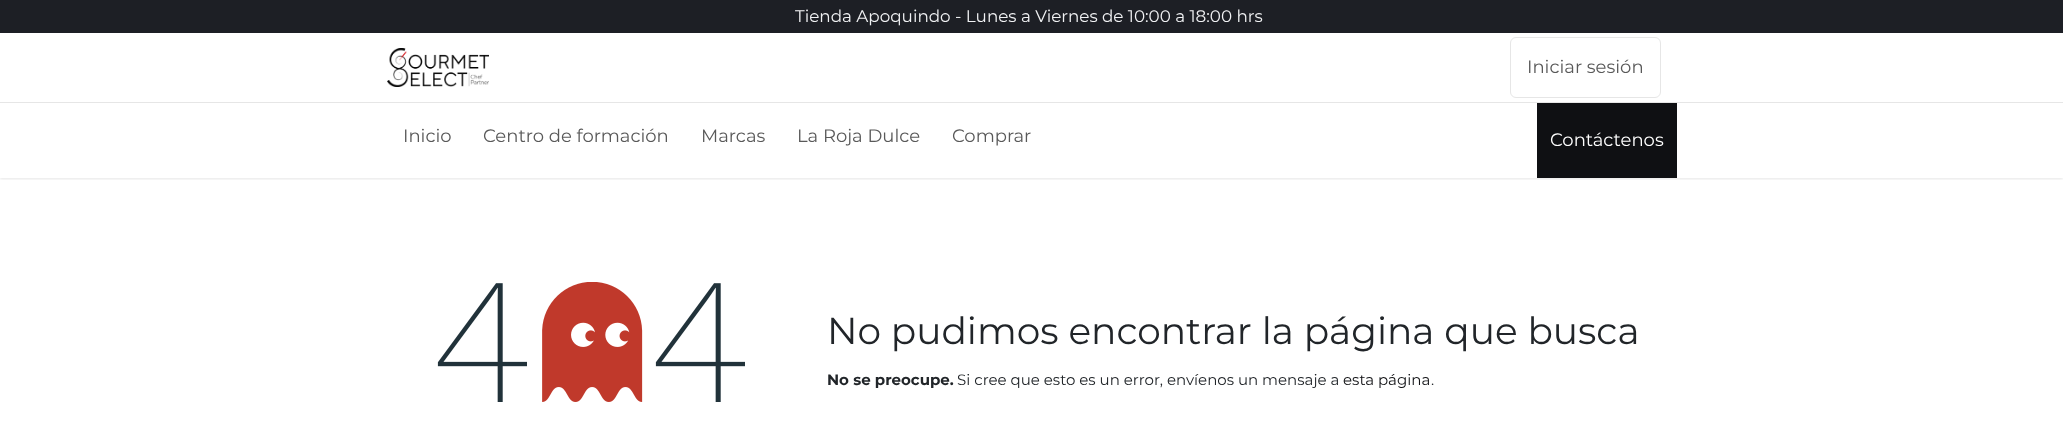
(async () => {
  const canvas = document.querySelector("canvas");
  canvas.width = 2063;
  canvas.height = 427;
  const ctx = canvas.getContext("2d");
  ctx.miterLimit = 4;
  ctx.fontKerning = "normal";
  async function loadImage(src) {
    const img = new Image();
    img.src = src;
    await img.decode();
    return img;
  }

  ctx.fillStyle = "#ffffff";
  ctx.fillRect(0, 0, 2063, 427);
  ctx.save();
  ctx.beginPath();
  ctx.rect(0, 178, 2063, 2);
  ctx.clip();
  ctx.fillStyle = "rgba(0, 0, 0, 0.1)";
  ctx.filter = "blur(1.5px)";
  ctx.beginPath();
  ctx.rect(0, 1, 2063, 178);
  ctx.fill();
  ctx.filter = "none";
  ctx.restore();
  ctx.fillStyle = "#1d1f25";
  ctx.fillRect(0, 0, 2063, 33);
  ctx.drawImage(await loadImage("img/1.png"), 387, 48, 102, 39);
  ctx.beginPath();
  ctx.roundRect(1510.5, 37.5, 150, 60, 5.5);
  ctx.strokeStyle = "#e6e6e6";
  ctx.stroke();
  ctx.fillStyle = "#e6e6e6";
  ctx.fillRect(0, 102, 2063, 1);
  ctx.fillStyle = "#0f1013";
  ctx.fillRect(1537, 103, 140, 75);
  ctx.drawImage(await loadImage("img/2.png"), 437, 282, 308, 120);
  ctx.font = "16.8px Montserrat";
  ctx.fillStyle = "#f1f2f4";
  ctx.fillText("Tienda Apoquindo - Lunes a Viernes de 10:00 a 18:00 hrs", 795, 22);
  ctx.font = "18px Montserrat";
  ctx.fillStyle = "#595959";
  for (const [text, x, y] of [
    ["Iniciar sesión", 1527, 73],
    ["Inicio", 403, 142],
    ["Centro de formación", 483, 142],
    ["Marcas", 701, 142],
    ["La Roja Dulce", 797, 142],
    ["Comprar", 952, 142],
  ]) {
    ctx.fillText(text, x, y);
  }
  ctx.fillStyle = "#ffffff";
  ctx.fillText("Contáctenos", 1550, 146);
  ctx.font = "37.5px Montserrat";
  ctx.fillStyle = "#212529";
  ctx.fillText("No pudimos encontrar la página que busca", 827, 344);
  ctx.font = "bold 15px Montserrat";
  ctx.fillText("No se preocupe.", 827, 385);
  ctx.font = "15px Montserrat";
  ctx.fillText("Si cree que esto es un error, envíenos un mensaje a", 957, 385);
  ctx.fillStyle = "#0f1013";
  ctx.fillText("esta página", 1343, 385);
  ctx.fillStyle = "#212529";
  ctx.fillText(".", 1431, 385);
})();
